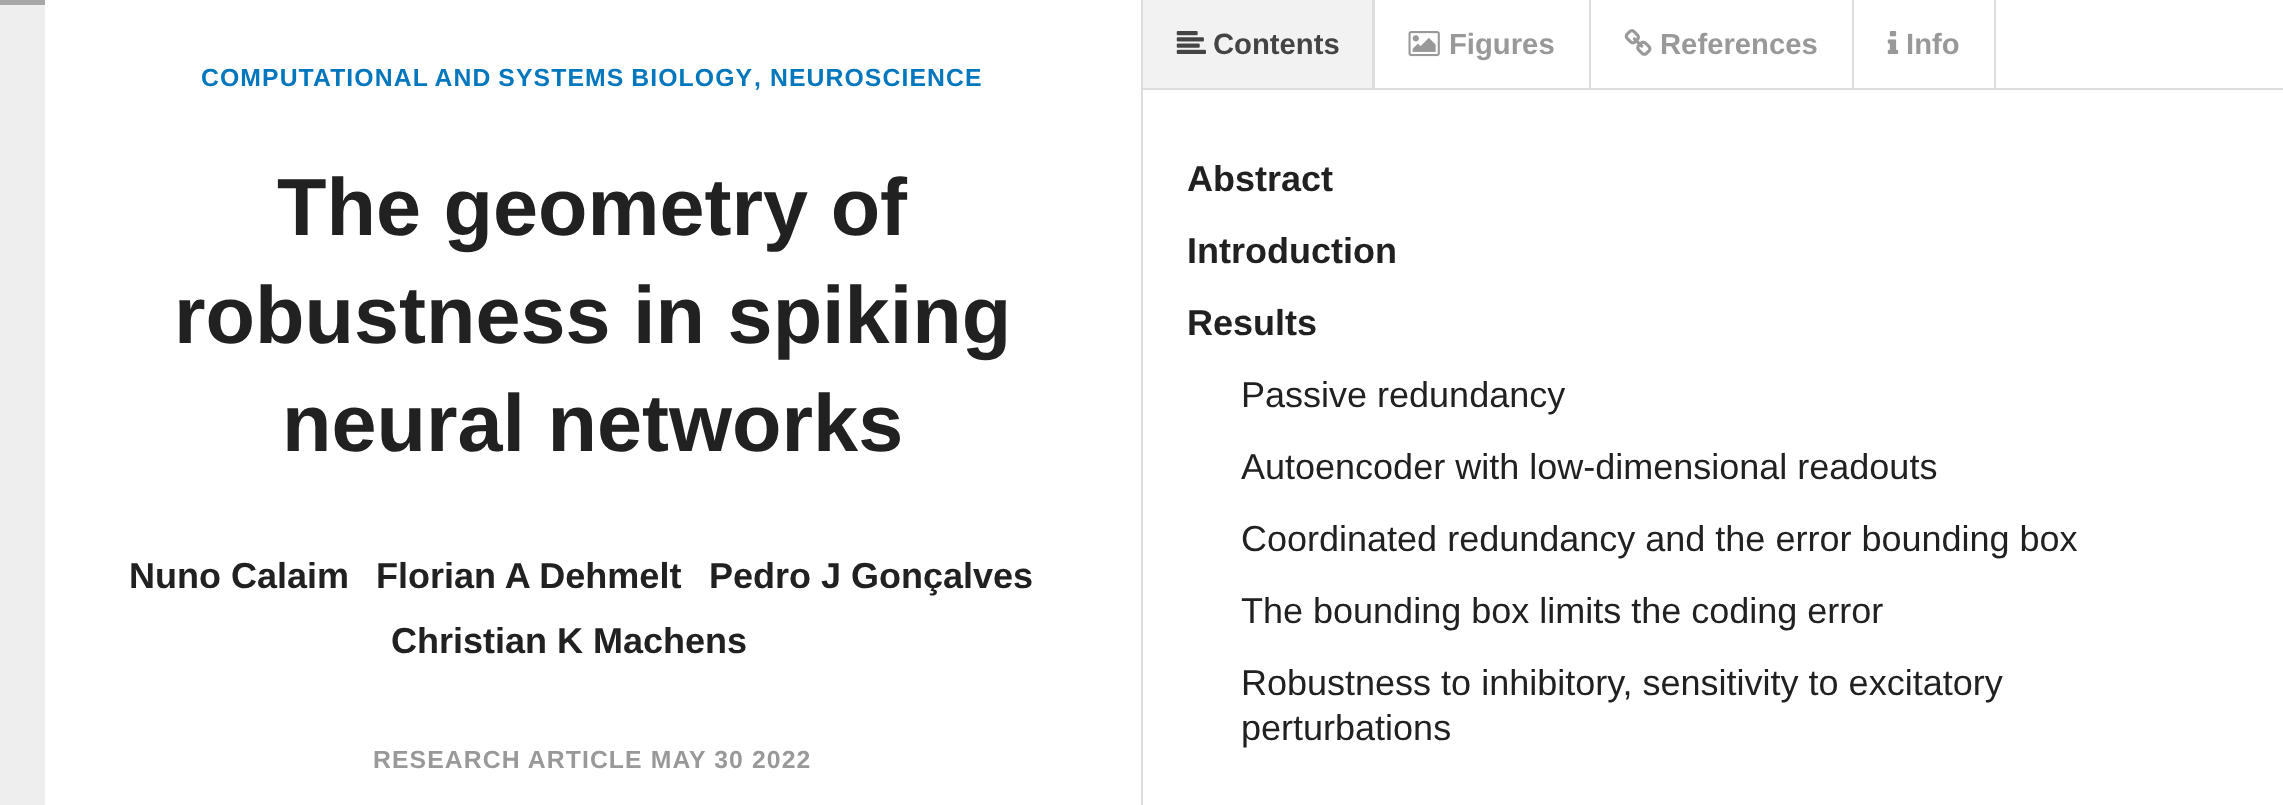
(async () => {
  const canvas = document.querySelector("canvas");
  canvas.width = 2283;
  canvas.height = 805;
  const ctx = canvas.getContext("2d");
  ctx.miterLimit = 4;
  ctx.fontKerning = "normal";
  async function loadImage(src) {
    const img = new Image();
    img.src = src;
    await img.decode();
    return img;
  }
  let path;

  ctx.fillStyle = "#ffffff";
  ctx.fillRect(0, 0, 2283, 805);
  for (const [x, y, w, h, color] of [
    [1141, 0, 2, 805, "#dddddd"],
    [0, 5, 45, 800, "#eeeeee"],
    [0, 0, 45, 5, "#a7a7a7"],
    [1143, 88, 1140, 2, "#dddddd"],
    [1143, 0, 229, 88, "#f2f2f2"],
  ]) {
    ctx.fillStyle = color;
    ctx.fillRect(x, y, w, h);
  }
  ctx.save();
  ctx.beginPath();
  ctx.rect(1143, 0, 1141, 88);
  ctx.clip();
  ctx.fillStyle = "#dddddd";
  path = new Path2D("M1375 0V97L1372 90V0Z");
  ctx.fill(path);
  ctx.restore();
  ctx.drawImage(await loadImage("img/1.png"), 1176, 31, 30, 23);
  ctx.fillStyle = "#dddddd";
  ctx.fillRect(1589, 0, 2, 88);
  ctx.drawImage(await loadImage("img/2.png"), 1408, 31, 32, 26);
  ctx.fillRect(1852, 0, 2, 88);
  ctx.drawImage(await loadImage("img/3.png"), 1624, 29, 28, 27);
  ctx.fillRect(1994, 0, 2, 88);
  ctx.drawImage(await loadImage("img/4.png"), 1887, 31, 12, 23);
  ctx.letterSpacing = "1.1px";
  ctx.wordSpacing = "-1px";
  ctx.font = "bold 24.75px Liberation Sans";
  ctx.fillStyle = "#0277bd";
  ctx.fillText("COMPUTATIONAL AND SYSTEMS BIOLOGY", 201, 86);
  ctx.wordSpacing = "0px";
  ctx.fillText(", NEUROSCIENCE", 754, 86);
  ctx.letterSpacing = "0px";
  ctx.font = "bold 81px Liberation Sans";
  ctx.fillStyle = "#212121";
  for (const [text, x, y] of [
    ["The geometry of", 277, 235],
    ["robustness in spiking", 174, 343],
    ["neural networks", 282, 451],
  ]) {
    ctx.fillText(text, x, y);
  }
  ctx.font = "bold 36px Liberation Sans";
  for (const [text, x, y] of [
    ["Nuno Calaim", 129, 588],
    ["Florian A Dehmelt", 376, 588],
    ["Pedro J Gonçalves", 709, 588],
    ["Christian K Machens", 391, 653],
  ]) {
    ctx.fillText(text, x, y);
  }
  ctx.letterSpacing = "1.1px";
  ctx.font = "bold 24.75px Liberation Sans";
  ctx.fillStyle = "#999999";
  ctx.fillText("RESEARCH ARTICLE MAY 30 2022", 373, 768);
  ctx.letterSpacing = "0px";
  ctx.font = "bold 29.25px Liberation Sans";
  ctx.fillStyle = "#444444";
  ctx.fillText("Contents", 1213, 54);
  ctx.fillStyle = "#999999";
  for (const [text, x, y] of [
    ["Figures", 1449, 54],
    ["References", 1660, 54],
    ["Info", 1906, 54],
  ]) {
    ctx.fillText(text, x, y);
  }
  ctx.font = "bold 36px Liberation Sans";
  ctx.fillStyle = "#212121";
  for (const [text, x, y] of [
    ["Abstract", 1187, 191],
    ["Introduction", 1187, 263],
    ["Results", 1187, 335],
  ]) {
    ctx.fillText(text, x, y);
  }
  ctx.font = "36px Liberation Sans";
  for (const [text, x, y] of [
    ["Passive redundancy", 1241, 407],
    ["Autoencoder with low-dimensional readouts", 1241, 479],
    ["Coordinated redundancy and the error bounding box", 1241, 551],
    ["The bounding box limits the coding error", 1241, 623],
    ["Robustness to inhibitory, sensitivity to excitatory", 1241, 695],
    ["perturbations", 1241, 740],
  ]) {
    ctx.fillText(text, x, y);
  }
})();
